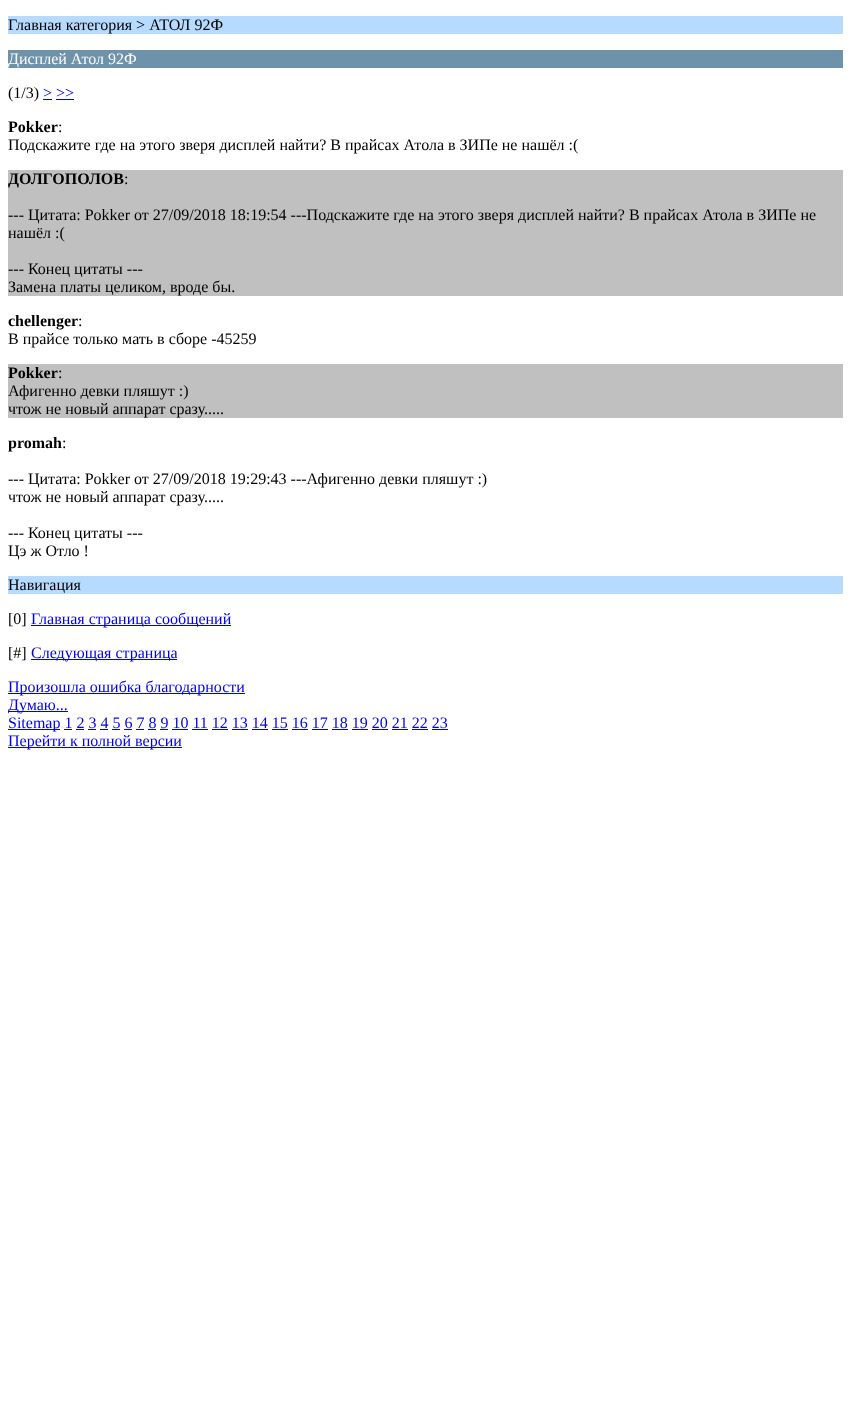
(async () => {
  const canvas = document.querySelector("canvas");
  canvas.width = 851;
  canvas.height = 1414;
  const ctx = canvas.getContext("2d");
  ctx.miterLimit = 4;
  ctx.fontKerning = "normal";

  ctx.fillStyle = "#ffffff";
  ctx.fillRect(0, 0, 851, 1414);
  for (const [x, y, w, h, color] of [
    [8, 16, 835, 18, "#b6dbff"],
    [8, 50, 835, 18, "#6d92aa"],
    [43, 99, 9, 1, "#0000ee"],
    [56, 99, 18, 1, "#0000ee"],
    [8, 170, 835, 126, "#c0c0c0"],
    [8, 364, 835, 54, "#c0c0c0"],
    [8, 576, 835, 18, "#b6dbff"],
    [31, 625, 200, 1, "#0000ee"],
    [31, 659, 146, 1, "#0000ee"],
    [8, 693, 237, 1, "#0000ee"],
    [8, 711, 60, 1, "#0000ee"],
    [8, 729, 52, 1, "#0000ee"],
    [64, 729, 8, 1, "#0000ee"],
    [76, 729, 8, 1, "#0000ee"],
    [88, 729, 8, 1, "#0000ee"],
    [100, 729, 8, 1, "#0000ee"],
    [112, 729, 8, 1, "#0000ee"],
    [124, 729, 8, 1, "#0000ee"],
    [136, 729, 8, 1, "#0000ee"],
    [148, 729, 8, 1, "#0000ee"],
    [160, 729, 8, 1, "#0000ee"],
    [172, 729, 16, 1, "#0000ee"],
    [192, 729, 16, 1, "#0000ee"],
    [212, 729, 16, 1, "#0000ee"],
    [232, 729, 16, 1, "#0000ee"],
    [252, 729, 16, 1, "#0000ee"],
    [272, 729, 16, 1, "#0000ee"],
    [292, 729, 16, 1, "#0000ee"],
    [312, 729, 16, 1, "#0000ee"],
    [332, 729, 16, 1, "#0000ee"],
    [352, 729, 16, 1, "#0000ee"],
    [372, 729, 16, 1, "#0000ee"],
    [392, 729, 16, 1, "#0000ee"],
    [412, 729, 16, 1, "#0000ee"],
    [432, 729, 16, 1, "#0000ee"],
    [8, 747, 174, 1, "#0000ee"],
  ]) {
    ctx.fillStyle = color;
    ctx.fillRect(x, y, w, h);
  }
  ctx.font = "16px Liberation Serif";
  ctx.fillStyle = "#000000";
  ctx.fillText("Главная категория > АТОЛ 92Ф", 8, 30);
  ctx.fillStyle = "#ffffff";
  ctx.fillText("Дисплей Атол 92Ф", 8, 64);
  ctx.fillStyle = "#000000";
  ctx.fillText("(1/3)", 8, 98);
  ctx.fillStyle = "#0000ee";
  ctx.fillText("> >>", 43, 98);
  ctx.font = "bold 16px Liberation Serif";
  ctx.fillStyle = "#000000";
  ctx.fillText("Pokker", 8, 132);
  ctx.font = "16px Liberation Serif";
  ctx.fillText(":", 58, 132);
  ctx.fillText("Подскажите где на этого зверя дисплей найти? В прайсах Атола в ЗИПе не нашёл :(", 8, 150);
  ctx.font = "bold 16px Liberation Serif";
  ctx.fillText("ДОЛГОПОЛОВ", 8, 184);
  ctx.font = "16px Liberation Serif";
  for (const [text, x, y] of [
    [":", 124, 184],
    ["--- Цитата: Pokker от 27/09/2018 18:19:54 ---Подскажите где на этого зверя дисплей найти? В прайсах Атола в ЗИПе не", 8, 220],
    ["нашёл :(", 8, 238],
    ["--- Конец цитаты ---", 8, 274],
    ["Замена платы целиком, вроде бы.", 8, 292],
  ]) {
    ctx.fillText(text, x, y);
  }
  ctx.font = "bold 16px Liberation Serif";
  ctx.fillText("chellenger", 8, 326);
  ctx.font = "16px Liberation Serif";
  ctx.fillText(":", 78, 326);
  ctx.fillText("В прайсе только мать в сборе -45259", 8, 344);
  ctx.font = "bold 16px Liberation Serif";
  ctx.fillText("Pokker", 8, 378);
  ctx.font = "16px Liberation Serif";
  for (const [text, x, y] of [
    [":", 58, 378],
    ["Афигенно девки пляшут :)", 8, 396],
    ["чтож не новый аппарат сразу.....", 8, 414],
  ]) {
    ctx.fillText(text, x, y);
  }
  ctx.font = "bold 16px Liberation Serif";
  ctx.fillText("promah", 8, 448);
  ctx.font = "16px Liberation Serif";
  for (const [text, x, y] of [
    [":", 62, 448],
    ["--- Цитата: Pokker от 27/09/2018 19:29:43 ---Афигенно девки пляшут :)", 8, 484],
    ["чтож не новый аппарат сразу.....", 8, 502],
    ["--- Конец цитаты ---", 8, 538],
    ["Цэ ж Отло !", 8, 556],
    ["Навигация", 8, 590],
    ["[0]", 8, 624],
  ]) {
    ctx.fillText(text, x, y);
  }
  ctx.fillStyle = "#0000ee";
  ctx.fillText("Главная страница сообщений", 31, 624);
  ctx.fillStyle = "#000000";
  ctx.fillText("[#]", 8, 658);
  ctx.fillStyle = "#0000ee";
  for (const [text, x, y] of [
    ["Следующая страница", 31, 658],
    ["Произошла ошибка благодарности", 8, 692],
    ["Думаю...", 8, 710],
    ["Sitemap 1 2 3 4 5 6 7 8 9 10 11 12 13 14 15 16 17 18 19 20 21 22 23", 8, 728],
    ["Перейти к полной версии", 8, 746],
  ]) {
    ctx.fillText(text, x, y);
  }
})();
